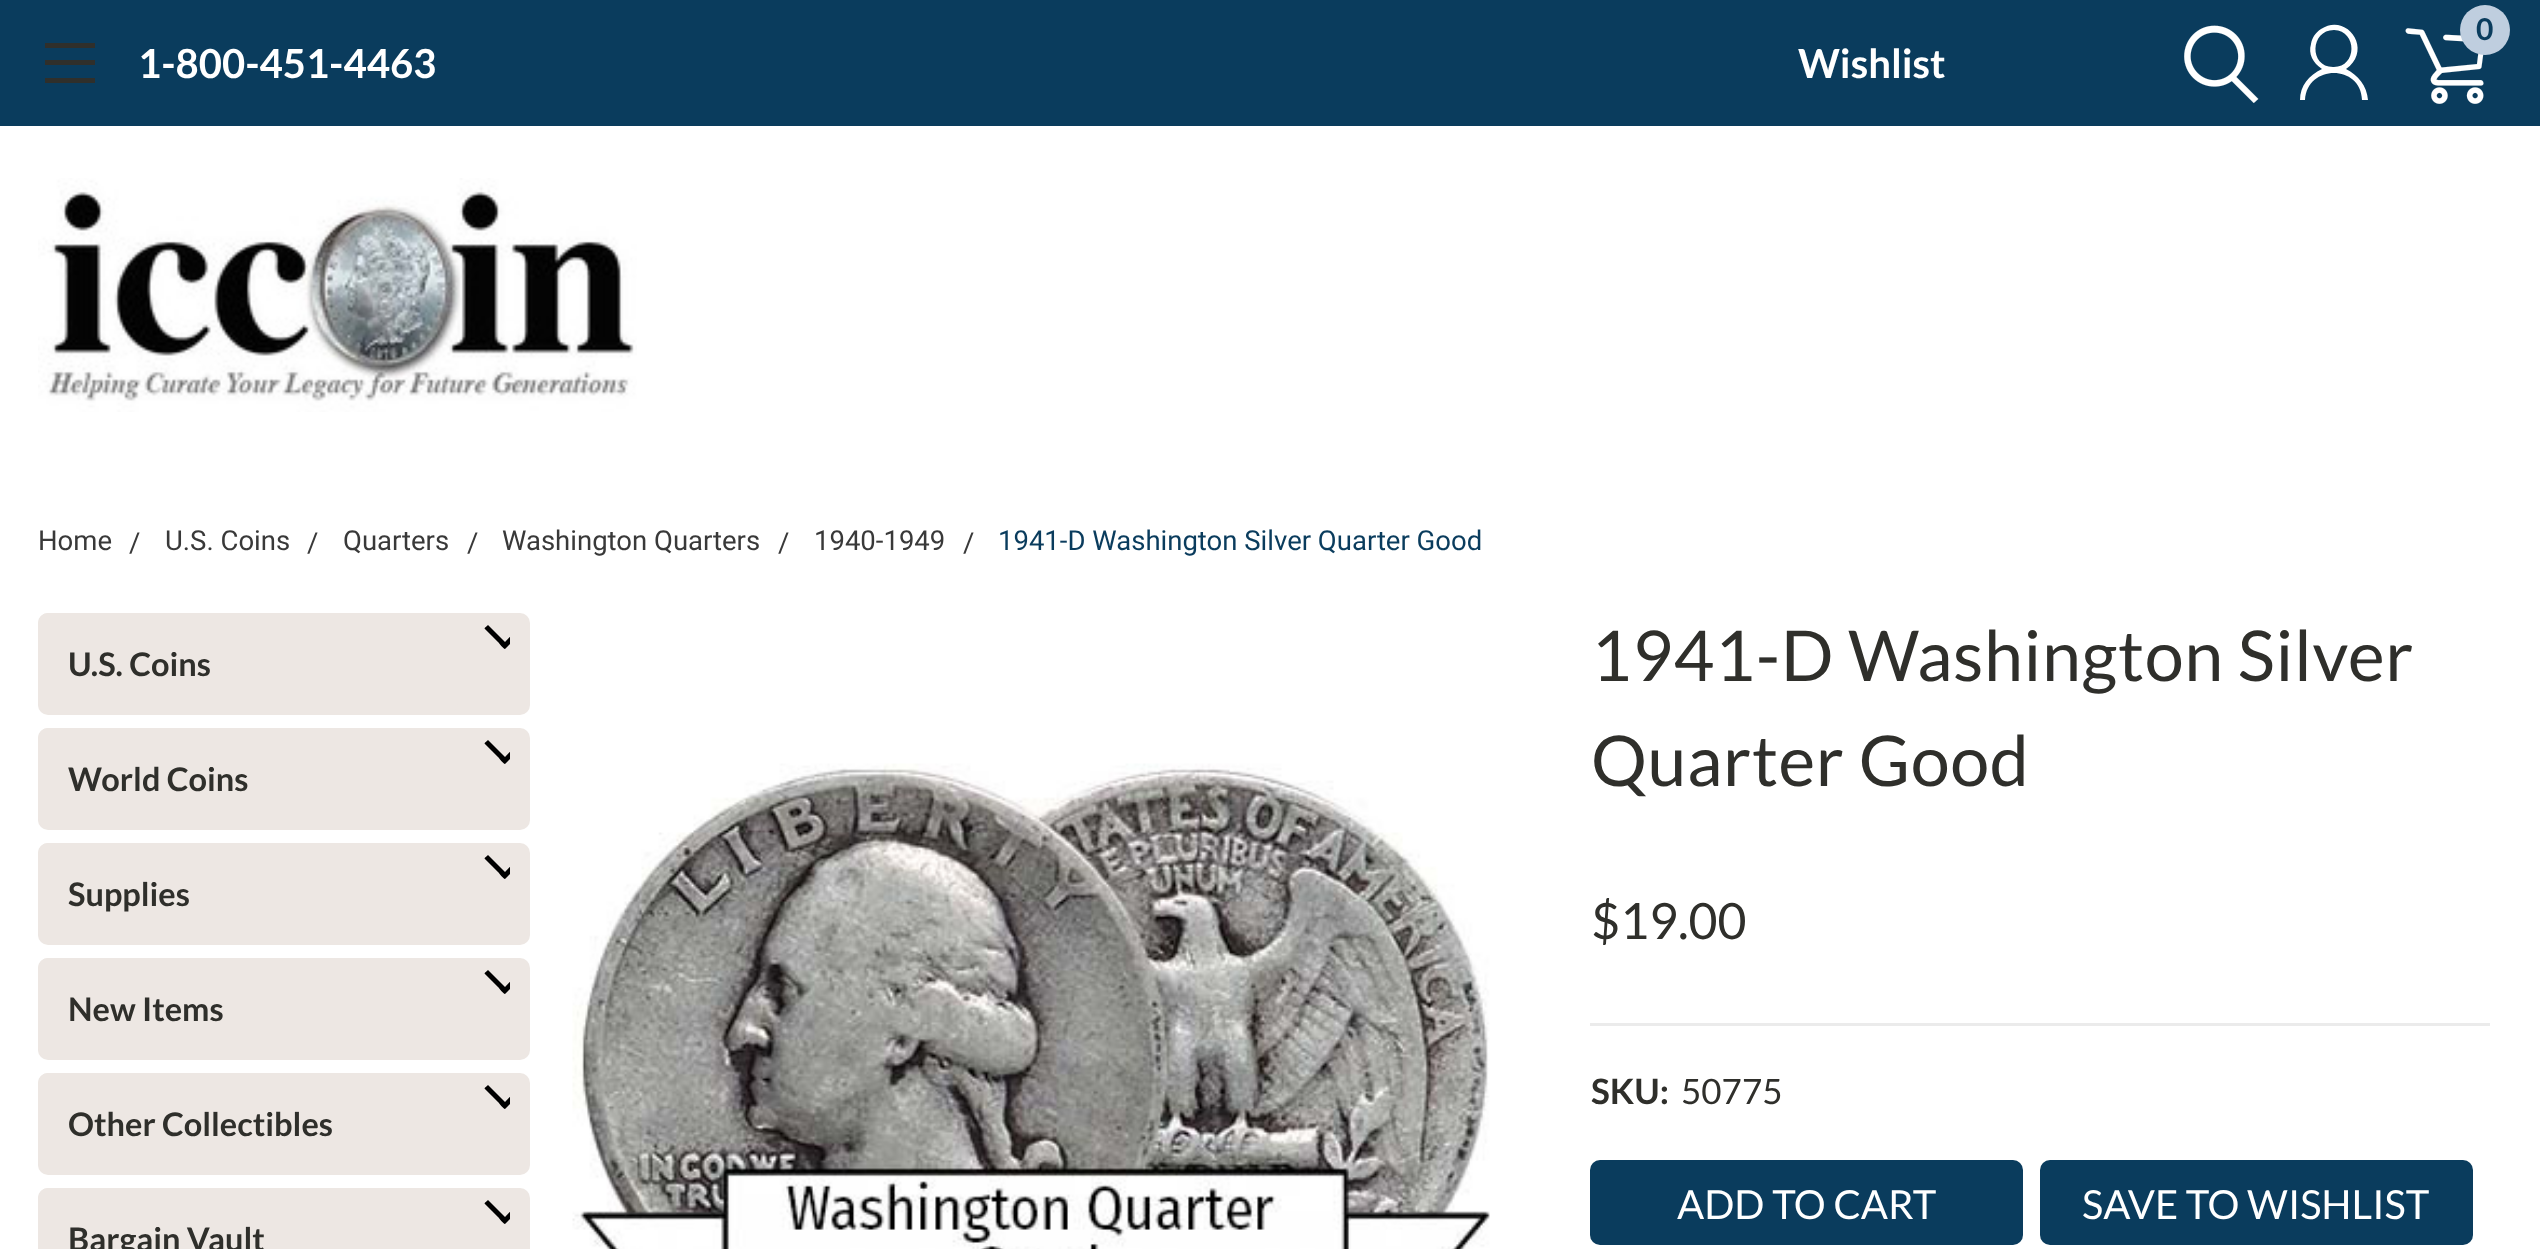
(async () => {
  const canvas = document.querySelector("canvas");
  canvas.width = 2540;
  canvas.height = 1249;
  const ctx = canvas.getContext("2d");
  ctx.miterLimit = 4;
  ctx.fontKerning = "normal";
  async function loadImage(src) {
    const img = new Image();
    img.src = src;
    await img.decode();
    return img;
  }
  let path;

  ctx.fillStyle = "#ffffff";
  ctx.fillRect(0, 0, 2540, 1249);
  ctx.fillStyle = "#0a3c5d";
  ctx.fillRect(0, 0, 2540, 126);
  ctx.drawImage(await loadImage("img/1.png"), 2184, 25, 75, 78);
  ctx.fillStyle = "#ffffff";
  path = new Path2D("M2362 100C2361 64 2307 64 2305 100H2300C2300 86 2309 75 2322 69C2313 63 2308 54 2311 44C2312 38 2315 33 2321 29C2346 12 2374 49 2346 69C2358 75 2367 86 2368 100ZM2334 30C2310 30 2309 67 2333 67C2357 68 2358 31 2334 30Z");
  ctx.fill(path);
  ctx.drawImage(await loadImage("img/2.png"), 2405, 28, 79, 76);
  ctx.fillStyle = "#bfcedf";
  ctx.beginPath();
  ctx.arc(2485, 30, 25, 0, Math.PI * 2);
  ctx.fill();
  for (const [x, y, w, h, color] of [
    [45, 60, 50, 5, "#2f2f2b"],
    [45, 43, 50, 5, "#2f2f2b"],
    [45, 78, 50, 5, "#2f2f2b"],
  ]) {
    ctx.fillStyle = color;
    ctx.fillRect(x, y, w, h);
  }
  ctx.drawImage(await loadImage("img/3.png"), 38, 178, 599, 234);
  ctx.fillStyle = "#ede7e3";
  ctx.beginPath();
  ctx.roundRect(38, 613, 492, 102, 10);
  ctx.fill();
  ctx.save();
  ctx.beginPath();
  ctx.rect(475, 603, 35, 60);
  ctx.clip();
  ctx.fillStyle = "#000000";
  path = new Path2D("M505 649C503.5 649 499 643 498 642L484.5 628.5C484.5 628 487.5 625.5 488 625L505 642L521.5 625L523 626V631Z");
  ctx.fill(path);
  ctx.restore();
  ctx.beginPath();
  ctx.roundRect(38, 613, 420, 100, 10);
  ctx.fill();
  ctx.beginPath();
  ctx.roundRect(38, 728, 492, 102, 10);
  ctx.fill();
  ctx.save();
  ctx.beginPath();
  ctx.rect(475, 718, 35, 60);
  ctx.clip();
  ctx.fillStyle = "#000000";
  path = new Path2D("M505 764C503.5 764 499 758 498 757L484.5 743.5C484.5 743 487.5 740.5 488 740L505 757L521.5 740L523 741V746Z");
  ctx.fill(path);
  ctx.restore();
  ctx.beginPath();
  ctx.roundRect(38, 728, 420, 100, 10);
  ctx.fill();
  ctx.beginPath();
  ctx.roundRect(38, 843, 492, 102, 10);
  ctx.fill();
  ctx.save();
  ctx.beginPath();
  ctx.rect(475, 833, 35, 60);
  ctx.clip();
  ctx.fillStyle = "#000000";
  path = new Path2D("M505 879C503.5 879 499 873 498 872L484.5 858.5C484.5 858 487.5 855.5 488 855L505 872L521.5 855L523 856V861Z");
  ctx.fill(path);
  ctx.restore();
  ctx.beginPath();
  ctx.roundRect(38, 843, 420, 100, 10);
  ctx.fill();
  ctx.beginPath();
  ctx.roundRect(38, 958, 492, 102, 10);
  ctx.fill();
  ctx.save();
  ctx.beginPath();
  ctx.rect(475, 948, 35, 60);
  ctx.clip();
  ctx.fillStyle = "#000000";
  path = new Path2D("M505 994C503.5 994 499 988 498 987L484.5 973.5C484.5 973 487.5 970.5 488 970L505 987L521.5 970L523 971V976Z");
  ctx.fill(path);
  ctx.restore();
  ctx.beginPath();
  ctx.roundRect(38, 958, 420, 100, 10);
  ctx.fill();
  ctx.beginPath();
  ctx.roundRect(38, 1073, 492, 102, 10);
  ctx.fill();
  ctx.save();
  ctx.beginPath();
  ctx.rect(475, 1063, 35, 60);
  ctx.clip();
  ctx.fillStyle = "#000000";
  path = new Path2D("M505 1109C503.5 1109 499 1103 498 1102L484.5 1088.5C484.5 1088 487.5 1085.5 488 1085L505 1102L521.5 1085L523 1086V1091Z");
  ctx.fill(path);
  ctx.restore();
  ctx.beginPath();
  ctx.roundRect(38, 1073, 420, 100, 10);
  ctx.fill();
  ctx.beginPath();
  ctx.roundRect(38, 1188, 492, 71, 10);
  ctx.fill();
  ctx.save();
  ctx.beginPath();
  ctx.rect(475, 1178, 35, 60);
  ctx.clip();
  ctx.fillStyle = "#000000";
  path = new Path2D("M505 1224C503.5 1224 499 1218 498 1217L484.5 1203.5C484.5 1203 487.5 1200.5 488 1200L505 1217L521.5 1200L523 1201V1206Z");
  ctx.fill(path);
  ctx.restore();
  ctx.beginPath();
  ctx.roundRect(38, 1188, 420, 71, 10);
  ctx.fill();
  ctx.drawImage(await loadImage("img/4.png"), 572, 763, 918, 486);
  ctx.fillStyle = "#ebebeb";
  ctx.fillRect(1590, 1023, 900, 3);
  ctx.fillStyle = "#0a3c5d";
  ctx.beginPath();
  ctx.roundRect(1590, 1160, 433, 85, 10);
  ctx.fill();
  ctx.beginPath();
  ctx.roundRect(2040, 1160, 433, 85, 10);
  ctx.fill();
  ctx.font = "bold 30px Lato";
  ctx.fillText("0", 2476, 40);
  ctx.font = "bold 40px Lato";
  ctx.fillStyle = "#ffffff";
  ctx.fillText("1-800-451-4463", 138, 78);
  ctx.fillText("Wishlist", 1798, 78);
  ctx.font = "27.5px Roboto";
  ctx.fillStyle = "#393939";
  for (const [text, x, y] of [
    ["Home", 38, 550],
    ["/", 129, 552],
    ["U.S. Coins", 165, 550],
    ["/", 307, 552],
    ["Quarters", 343, 550],
    ["/", 467, 552],
    ["Washington Quarters", 502, 550],
    ["/", 778, 552],
    ["1940-1949", 814, 550],
    ["/", 963, 552],
  ]) {
    ctx.fillText(text, x, y);
  }
  ctx.fillStyle = "#0a3c5d";
  ctx.fillText("1941-D Washington Silver Quarter Good", 998, 550);
  ctx.font = "bold 32.5px Lato";
  ctx.fillStyle = "#2f2f2b";
  for (const [text, x, y] of [
    ["U.S. Coins", 68, 676],
    ["World Coins", 68, 791],
    ["Supplies", 68, 906],
    ["New Items", 68, 1021],
    ["Other Collectibles", 68, 1136],
    ["Bargain Vault", 68, 1251],
  ]) {
    ctx.fillText(text, x, y);
  }
  ctx.letterSpacing = "0.6px";
  ctx.font = "70px Lato";
  ctx.fillText("1941-D Washington Silver", 1591, 681);
  ctx.fillText("Quarter Good", 1591, 786);
  ctx.letterSpacing = "0px";
  ctx.font = "50px Lato";
  ctx.fillText("$19.00", 1591, 939);
  ctx.font = "bold 35px Lato";
  ctx.fillText("SKU:", 1591, 1104);
  ctx.font = "35px Lato";
  ctx.fillText("50775", 1681, 1104);
  ctx.font = "40px Lato";
  ctx.fillStyle = "#ffffff";
  ctx.fillText("ADD TO CART", 1677, 1219);
  ctx.fillText("SAVE TO WISHLIST", 2082, 1219);
})();
